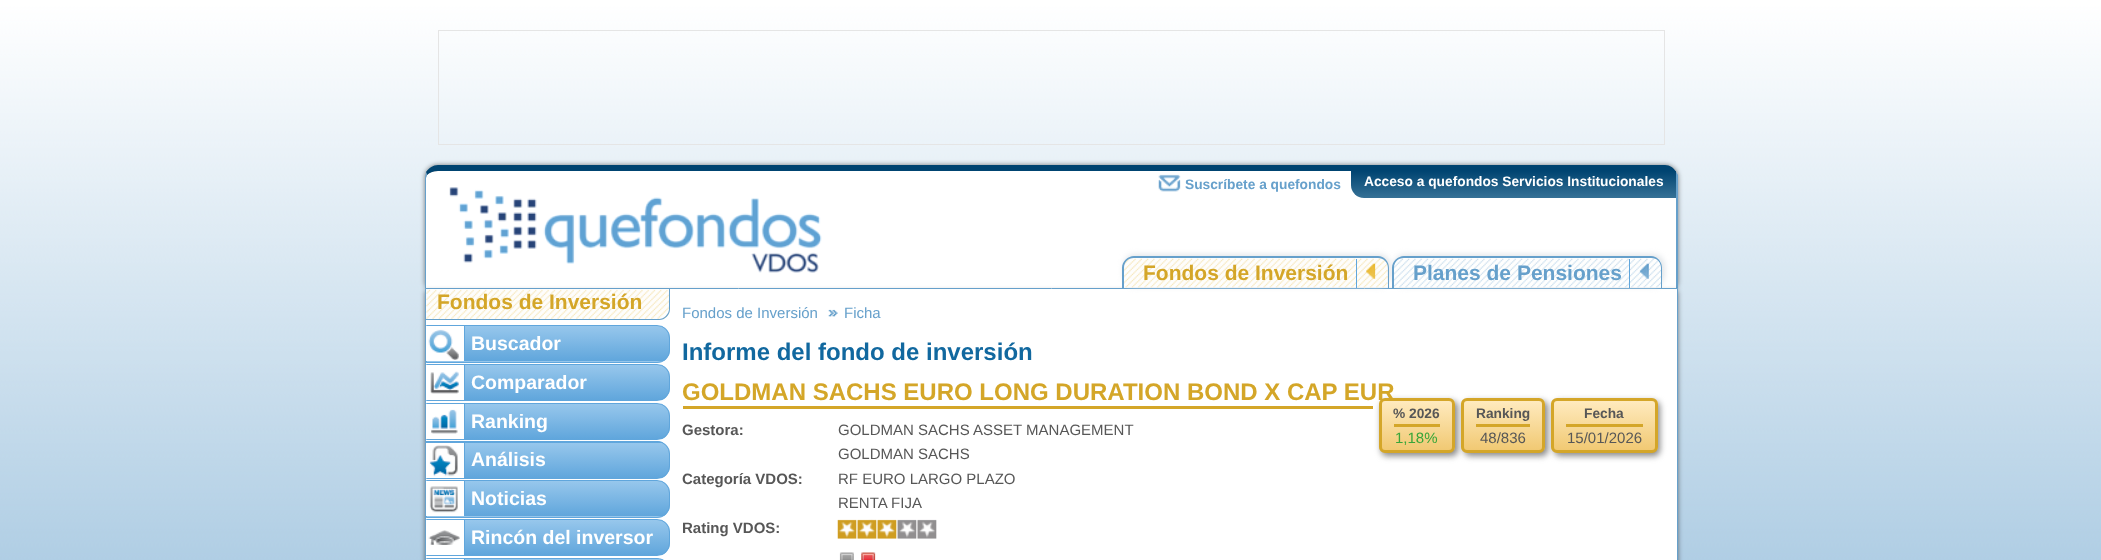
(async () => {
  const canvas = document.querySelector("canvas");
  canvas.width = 2101;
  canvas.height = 560;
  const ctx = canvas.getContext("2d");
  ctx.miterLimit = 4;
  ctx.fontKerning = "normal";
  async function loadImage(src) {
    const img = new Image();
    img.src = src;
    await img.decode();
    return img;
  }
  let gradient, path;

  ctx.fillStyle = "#ffffff";
  ctx.fillRect(0, 0, 2101, 560);
  ctx.drawImage(await loadImage("img/1.png"), 0, 0, 2101, 560);
  ctx.strokeStyle = "#e5e5e5";
  ctx.strokeRect(438.5, 30.5, 1226, 114);
  ctx.fillStyle = "rgba(0, 0, 0, 0.5)";
  ctx.filter = "blur(2.5px)";
  ctx.beginPath();
  ctx.roundRect(425, 165, 1253, 129, 13);
  ctx.fill();
  ctx.filter = "none";
  ctx.fillStyle = "#ffffff";
  path = new Path2D("M438 171H1665C1671 171 1676 174 1676 178V292H426V178C426 174 431 171 438 171Z");
  ctx.fill(path);
  ctx.fillStyle = "#004471";
  path = new Path2D("M438 165C433 165 429 168 426 172L427 175C429 173 433 171 438 171H1665C1670 171 1674 173 1675 176L1676 172C1674 168 1670 165 1665 165Z");
  ctx.fill(path);
  ctx.fillStyle = "#66a0cb";
  path = new Path2D("M1676 172L1678 175V294L1676 292V178L1675 176Z");
  ctx.fill(path);
  path = new Path2D("M425 294L427 292H426V178L427 175L426 172C426 174 425 176 425 178Z");
  ctx.fill(path);
  ctx.drawImage(await loadImage("img/2.png"), 1158, 174, 23, 18);
  gradient = ctx.createLinearGradient(1514, 171, 1514, 198);
  gradient.addColorStop(0, "#004471");
  gradient.addColorStop(1, "#367196");
  ctx.fillStyle = gradient;
  ctx.beginPath();
  ctx.roundRect(1351, 171, 325, 27, [0, 0, 0, 13]);
  ctx.fill();
  ctx.drawImage(await loadImage("img/3.png"), 449, 187, 373, 86);
  ctx.fillStyle = "rgba(0, 0, 0, 0.5)";
  ctx.filter = "blur(2.5px)";
  ctx.beginPath();
  ctx.rect(425, 291, 1253, 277);
  ctx.fill();
  ctx.filter = "none";
  ctx.fillStyle = "#ffffff";
  ctx.beginPath();
  ctx.rect(425.5, 288.5, 1252, 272);
  ctx.fill();
  ctx.strokeStyle = "#66a0cb";
  ctx.stroke();
  ctx.fillStyle = "#dde1e5";
  ctx.filter = "blur(3px)";
  ctx.beginPath();
  ctx.roundRect(1124, 255, 266, 31, 11);
  ctx.fill();
  ctx.filter = "none";
  ctx.drawImage(await loadImage("img/4.png"), 1122, 258, 266, 30);
  ctx.fillStyle = "#66a0cb";
  path = new Path2D("M1134 256H1378C1384 256 1389 261 1389 268V288H1122V268C1122 261 1128 256 1134 256ZM1134 258H1378C1383 258 1388 262 1388 268V288H1124V268C1124 262 1128 258 1134 258Z");
  ctx.fill(path, "evenodd");
  ctx.fillStyle = "#60a6dc";
  ctx.fillRect(1356, 259, 1, 29);
  ctx.drawImage(await loadImage("img/5.png"), 1366, 263, 10, 16);
  ctx.fillStyle = "#dde1e5";
  ctx.filter = "blur(3px)";
  ctx.beginPath();
  ctx.roundRect(1394, 255, 270, 31, 11);
  ctx.fill();
  ctx.filter = "none";
  ctx.drawImage(await loadImage("img/6.png"), 1392, 258, 270, 30);
  ctx.fillStyle = "#66a0cb";
  path = new Path2D("M1404 256H1651C1657 256 1662 261 1662 268V288H1392V268C1392 261 1398 256 1404 256ZM1404 258H1651C1657 258 1661 262 1661 268V288H1394V268C1394 262 1398 258 1404 258Z");
  ctx.fill(path, "evenodd");
  ctx.fillStyle = "#60a6dc";
  ctx.fillRect(1629, 259, 1, 29);
  ctx.drawImage(await loadImage("img/7.png"), 1639, 263, 10, 16);
  ctx.drawImage(await loadImage("img/8.png"), 426, 289, 244, 30);
  ctx.fillStyle = "#66a0cb";
  path = new Path2D("M426 288H670V309C670 315 665 320 659 320H426ZM426 289H669V309C669 314 664 319 659 319H426Z");
  ctx.fill(path, "evenodd");
  ctx.save();
  ctx.beginPath();
  ctx.roundRect(426, 325, 244, 38, [0, 13, 13, 0]);
  ctx.clip();
  gradient = ctx.createLinearGradient(548, 326, 548, 361);
  gradient.addColorStop(0, "#97c7ec");
  gradient.addColorStop(1, "#60a6dc");
  ctx.fillStyle = gradient;
  ctx.fillRect(465, 326, 205, 35);
  gradient = ctx.createLinearGradient(548, 361, 548, 396);
  gradient.addColorStop(0, "#97c7ec");
  gradient.addColorStop(1, "#60a6dc");
  ctx.fillStyle = gradient;
  ctx.fillRect(426, 361, 244, 2);
  ctx.restore();
  ctx.beginPath();
  ctx.roundRect(426.5, 325.5, 243, 37, [0, 12.5, 12.5, 0]);
  ctx.strokeStyle = "#60a6dc";
  ctx.stroke();
  ctx.fillStyle = "#ffffff";
  ctx.fillRect(426, 326, 38, 35);
  ctx.drawImage(await loadImage("img/9.png"), 428, 329, 31, 31);
  ctx.fillStyle = "#60a6dc";
  ctx.fillRect(464, 326, 1, 35);
  ctx.save();
  ctx.beginPath();
  ctx.roundRect(426, 364, 244, 37, [0, 13, 13, 0]);
  ctx.clip();
  gradient = ctx.createLinearGradient(548, 365, 548, 400);
  gradient.addColorStop(0, "#97c7ec");
  gradient.addColorStop(1, "#60a6dc");
  ctx.fillStyle = gradient;
  ctx.fillRect(465, 365, 205, 35);
  ctx.restore();
  ctx.beginPath();
  ctx.roundRect(426.5, 364.5, 243, 36, [0, 12.5, 12.5, 0]);
  ctx.stroke();
  ctx.fillStyle = "#ffffff";
  ctx.fillRect(426, 365, 38, 35);
  ctx.drawImage(await loadImage("img/10.png"), 430, 371, 29, 23);
  ctx.fillStyle = "#60a6dc";
  ctx.fillRect(464, 365, 1, 35);
  ctx.save();
  ctx.beginPath();
  ctx.roundRect(426, 403, 244, 37, [0, 13, 13, 0]);
  ctx.clip();
  gradient = ctx.createLinearGradient(548, 404, 548, 439);
  gradient.addColorStop(0, "#97c7ec");
  gradient.addColorStop(1, "#60a6dc");
  ctx.fillStyle = gradient;
  ctx.fillRect(465, 404, 205, 35);
  ctx.restore();
  ctx.beginPath();
  ctx.roundRect(426.5, 403.5, 243, 36, [0, 12.5, 12.5, 0]);
  ctx.stroke();
  ctx.fillStyle = "#ffffff";
  ctx.fillRect(426, 404, 38, 35);
  ctx.drawImage(await loadImage("img/11.png"), 431, 409, 27, 25);
  ctx.fillStyle = "#60a6dc";
  ctx.fillRect(464, 404, 1, 35);
  ctx.save();
  ctx.beginPath();
  ctx.roundRect(426, 441, 244, 38, [0, 13, 13, 0]);
  ctx.clip();
  gradient = ctx.createLinearGradient(548, 408, 548, 443);
  gradient.addColorStop(0, "#97c7ec");
  gradient.addColorStop(1, "#60a6dc");
  ctx.fillStyle = gradient;
  ctx.fillRect(426, 441, 244, 2);
  gradient = ctx.createLinearGradient(548, 443, 548, 478);
  gradient.addColorStop(0, "#97c7ec");
  gradient.addColorStop(1, "#60a6dc");
  ctx.fillStyle = gradient;
  ctx.fillRect(465, 443, 205, 35);
  ctx.restore();
  ctx.beginPath();
  ctx.roundRect(426.5, 441.5, 243, 37, [0, 12.5, 12.5, 0]);
  ctx.stroke();
  ctx.fillStyle = "#ffffff";
  ctx.fillRect(426, 443, 38, 35);
  ctx.drawImage(await loadImage("img/12.png"), 429, 445, 29, 32);
  ctx.fillStyle = "#60a6dc";
  ctx.fillRect(464, 443, 1, 35);
  ctx.save();
  ctx.beginPath();
  ctx.roundRect(426, 480, 244, 38, [0, 13, 13, 0]);
  ctx.clip();
  gradient = ctx.createLinearGradient(548, 481, 548, 516);
  gradient.addColorStop(0, "#97c7ec");
  gradient.addColorStop(1, "#60a6dc");
  ctx.fillStyle = gradient;
  ctx.fillRect(465, 481, 205, 35);
  gradient = ctx.createLinearGradient(548, 516, 548, 551);
  gradient.addColorStop(0, "#97c7ec");
  gradient.addColorStop(1, "#60a6dc");
  ctx.fillStyle = gradient;
  ctx.fillRect(426, 516, 244, 2);
  ctx.restore();
  ctx.beginPath();
  ctx.roundRect(426.5, 480.5, 243, 37, [0, 12.5, 12.5, 0]);
  ctx.stroke();
  ctx.fillStyle = "#ffffff";
  ctx.fillRect(426, 481, 38, 35);
  ctx.drawImage(await loadImage("img/13.png"), 429, 486, 29, 27);
  ctx.fillStyle = "#60a6dc";
  ctx.fillRect(464, 481, 1, 35);
  ctx.save();
  ctx.beginPath();
  ctx.roundRect(426, 519, 244, 37, [0, 13, 13, 0]);
  ctx.clip();
  gradient = ctx.createLinearGradient(548, 520, 548, 555);
  gradient.addColorStop(0, "#97c7ec");
  gradient.addColorStop(1, "#60a6dc");
  ctx.fillStyle = gradient;
  ctx.fillRect(465, 520, 205, 35);
  ctx.restore();
  ctx.beginPath();
  ctx.roundRect(426.5, 519.5, 243, 36, [0, 12.5, 12.5, 0]);
  ctx.stroke();
  ctx.fillStyle = "#ffffff";
  ctx.fillRect(426, 520, 38, 35);
  ctx.drawImage(await loadImage("img/14.png"), 428, 530, 32, 15);
  ctx.fillStyle = "#60a6dc";
  ctx.fillRect(464, 520, 1, 35);
  ctx.save();
  path = new Path2D("M426 558H657C664 558 670 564 670 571V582C670 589 664 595 657 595H426Z");
  ctx.clip(path);
  gradient = ctx.createLinearGradient(548, 559, 548, 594);
  gradient.addColorStop(0, "#97c7ec");
  gradient.addColorStop(1, "#60a6dc");
  ctx.fillStyle = gradient;
  ctx.fillRect(465, 559, 205, 1);
  ctx.restore();
  path = new Path2D("M426.5 558.5H657C664 558.5 669.5 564 669.5 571V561C669.5 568 664 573.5 657 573.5H426.5Z");
  ctx.stroke(path);
  ctx.fillStyle = "#ffffff";
  ctx.fillRect(426, 559, 38, 1);
  ctx.fillStyle = "#60a6dc";
  ctx.fillRect(464, 559, 1, 1);
  ctx.drawImage(await loadImage("img/15.png"), 828, 309, 10, 8);
  ctx.fillStyle = "#d4a629";
  ctx.fillRect(683, 406, 690, 3);
  ctx.drawImage(await loadImage("img/16.png"), 837, 519, 100, 20);
  ctx.drawImage(await loadImage("img/17.png"), 839, 552, 37, 8);
  ctx.fillStyle = "#888888";
  ctx.filter = "blur(3px)";
  ctx.beginPath();
  ctx.roundRect(1381, 401, 77, 55, 6);
  ctx.fill();
  ctx.filter = "none";
  ctx.save();
  ctx.beginPath();
  ctx.roundRect(1379, 398, 76, 55, 6);
  ctx.clip();
  gradient = ctx.createLinearGradient(1417, 400, 1417, 450);
  gradient.addColorStop(0, "#ffebc0");
  gradient.addColorStop(1, "#f1c973");
  ctx.fillStyle = gradient;
  ctx.fillRect(1379, 400, 76, 50);
  ctx.restore();
  ctx.beginPath();
  ctx.roundRect(1380.5, 399.5, 73, 52, 4.5);
  ctx.strokeStyle = "#d4a629";
  ctx.lineWidth = 3;
  ctx.stroke();
  ctx.fillStyle = "#d4a629";
  ctx.fillRect(1394, 424, 46, 3);
  ctx.fillStyle = "#888888";
  ctx.filter = "blur(3px)";
  ctx.beginPath();
  ctx.roundRect(1464, 401, 84, 55, 6);
  ctx.fill();
  ctx.filter = "none";
  ctx.save();
  ctx.beginPath();
  ctx.roundRect(1461, 398, 84, 55, 6);
  ctx.clip();
  gradient = ctx.createLinearGradient(1503, 400, 1503, 450);
  gradient.addColorStop(0, "#ffebc0");
  gradient.addColorStop(1, "#f1c973");
  ctx.fillStyle = gradient;
  ctx.fillRect(1461, 400, 84, 50);
  ctx.restore();
  ctx.beginPath();
  ctx.roundRect(1462.5, 399.5, 81, 52, 4.5);
  ctx.stroke();
  ctx.fillStyle = "#d4a629";
  ctx.fillRect(1476, 424, 54, 3);
  ctx.fillStyle = "#888888";
  ctx.filter = "blur(3px)";
  ctx.beginPath();
  ctx.roundRect(1554, 401, 106, 55, 6);
  ctx.fill();
  ctx.filter = "none";
  ctx.save();
  ctx.beginPath();
  ctx.roundRect(1551, 398, 107, 55, 6);
  ctx.clip();
  gradient = ctx.createLinearGradient(1604, 400, 1604, 450);
  gradient.addColorStop(0, "#ffebc0");
  gradient.addColorStop(1, "#f1c973");
  ctx.fillStyle = gradient;
  ctx.fillRect(1551, 400, 107, 50);
  ctx.restore();
  ctx.beginPath();
  ctx.roundRect(1552.5, 399.5, 104, 52, 4.5);
  ctx.stroke();
  ctx.fillStyle = "#d4a629";
  ctx.fillRect(1566, 424, 77, 3);
  ctx.font = "bold 13.75px Liberation Sans";
  ctx.fillStyle = "#66a0cb";
  ctx.fillText("Suscríbete a quefondos", 1185, 189);
  ctx.fillStyle = "#ffffff";
  ctx.fillText("Acceso a quefondos Servicios Institucionales", 1364, 186);
  ctx.font = "bold 21px Liberation Sans";
  ctx.fillStyle = "#d4a628";
  ctx.fillText("Fondos de Inversión", 1143, 280);
  ctx.fillStyle = "#66a0cb";
  ctx.fillText("Planes de Pensiones", 1413, 280);
  ctx.fillStyle = "#d4a628";
  ctx.fillText("Fondos de Inversión", 437, 309);
  ctx.font = "bold 19.5px Liberation Sans";
  ctx.fillStyle = "#ffffff";
  for (const [text, x, y] of [
    ["Buscador", 471, 350],
    ["Comparador", 471, 389],
    ["Ranking", 471, 428],
    ["Análisis", 471, 466],
    ["Noticias", 471, 505],
    ["Rincón del inversor", 471, 544],
  ]) {
    ctx.fillText(text, x, y);
  }
  ctx.font = "15px Liberation Sans";
  ctx.fillStyle = "#66a0cb";
  ctx.fillText("Fondos de Inversión", 682, 318);
  ctx.fillText("Ficha", 844, 318);
  ctx.font = "bold 24px Liberation Sans";
  ctx.fillStyle = "#11689f";
  ctx.fillText("Informe del fondo de inversión", 682, 360);
  ctx.fillStyle = "#d4a628";
  ctx.fillText("GOLDMAN SACHS EURO LONG DURATION BOND X CAP EUR", 682, 400);
  ctx.font = "bold 15px Liberation Sans";
  ctx.fillStyle = "#575757";
  ctx.fillText("Gestora:", 682, 435);
  ctx.font = "15px Liberation Sans";
  ctx.fillText("GOLDMAN SACHS ASSET MANAGEMENT", 838, 435);
  ctx.fillText("GOLDMAN SACHS", 838, 459);
  ctx.font = "bold 15px Liberation Sans";
  ctx.fillText("Categoría VDOS:", 682, 484);
  ctx.font = "15px Liberation Sans";
  ctx.fillText("RF EURO LARGO PLAZO", 838, 484);
  ctx.fillText("RENTA FIJA", 838, 508);
  ctx.font = "bold 15px Liberation Sans";
  ctx.fillText("Rating VDOS:", 682, 533);
  ctx.font = "bold 13.75px Liberation Sans";
  ctx.fillText("% 2026", 1393, 418);
  ctx.font = "15px Liberation Sans";
  ctx.fillStyle = "#39a639";
  ctx.fillText("1,18%", 1395, 443);
  ctx.font = "bold 13.75px Liberation Sans";
  ctx.fillStyle = "#575757";
  ctx.fillText("Ranking", 1476, 418);
  ctx.font = "15px Liberation Sans";
  ctx.fillText("48/836", 1480, 443);
  ctx.font = "bold 13.75px Liberation Sans";
  ctx.fillText("Fecha", 1584, 418);
  ctx.font = "15px Liberation Sans";
  ctx.fillText("15/01/2026", 1567, 443);
})();
